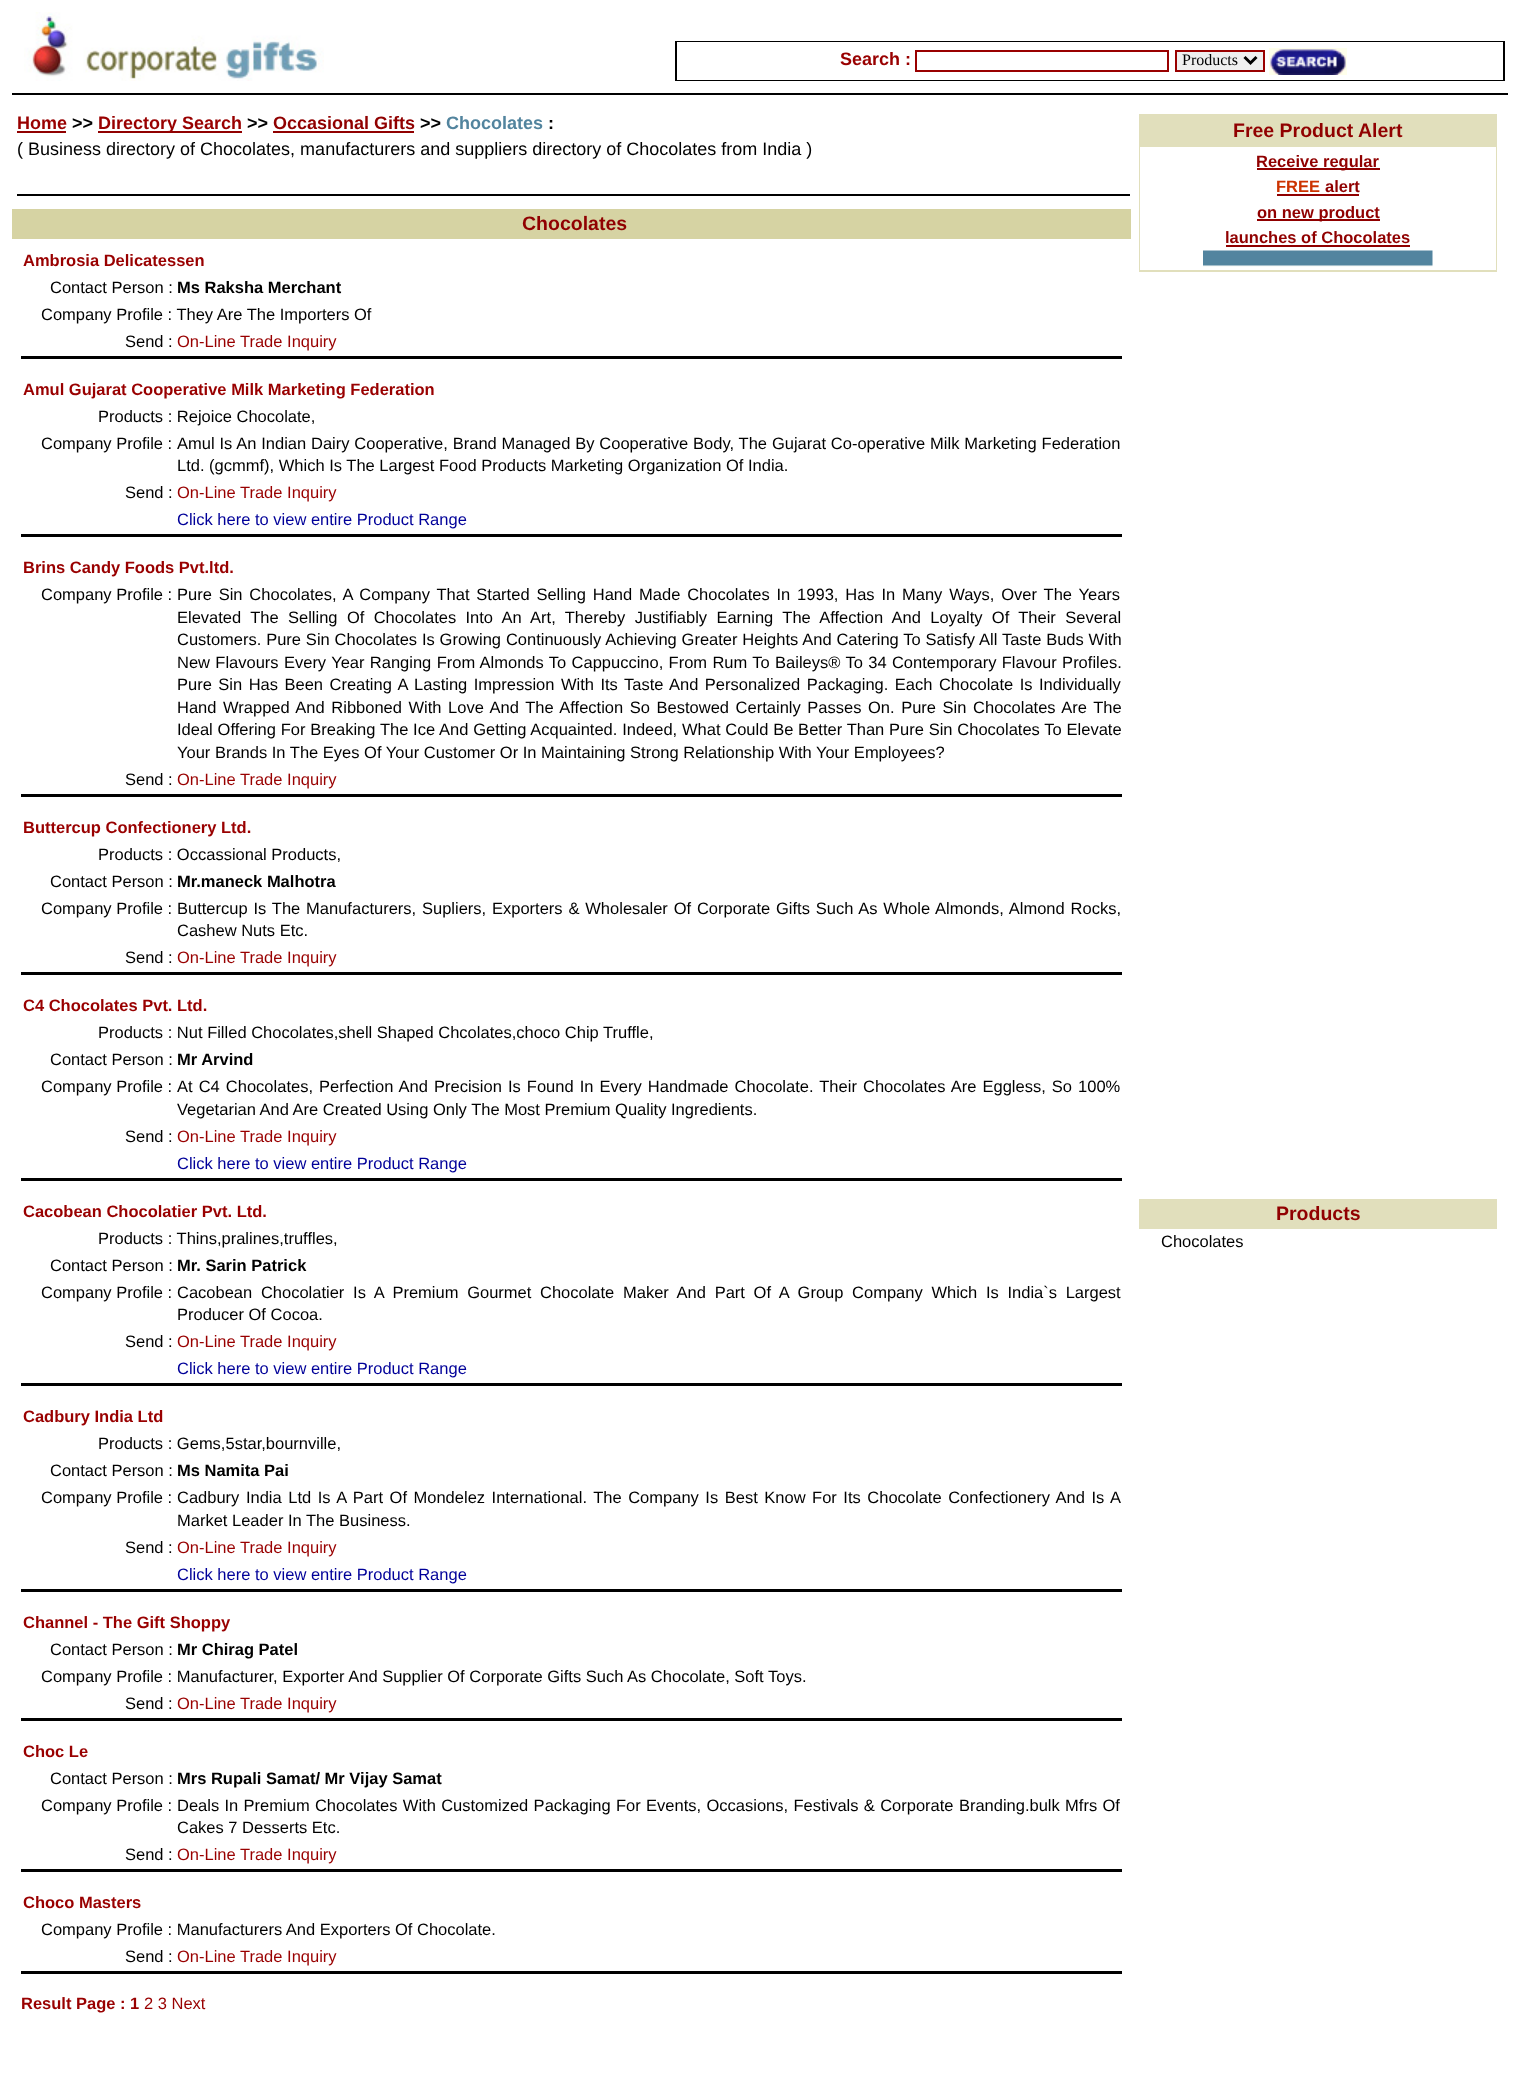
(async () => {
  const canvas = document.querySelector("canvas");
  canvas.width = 1516;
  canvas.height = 2083;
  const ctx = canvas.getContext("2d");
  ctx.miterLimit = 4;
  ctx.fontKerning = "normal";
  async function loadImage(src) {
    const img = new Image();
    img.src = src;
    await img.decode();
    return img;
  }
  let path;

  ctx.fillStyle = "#ffffff";
  ctx.fillRect(0, 0, 1516, 2083);
  ctx.drawImage(await loadImage("img/1.png"), 24, 12, 300, 69);
  ctx.fillStyle = "#000000";
  ctx.fillRect(675, 41, 830, 40);
  ctx.fillStyle = "#ffffff";
  ctx.fillRect(677, 42, 826, 38);
  ctx.strokeStyle = "#990000";
  ctx.lineWidth = 2;
  ctx.strokeRect(916, 51, 252, 20);
  ctx.fillStyle = "#efefef";
  ctx.beginPath();
  ctx.rect(1176, 51, 88, 20);
  ctx.fill();
  ctx.stroke();
  path = new Path2D("M1244.5 57L1250.5 63L1256.5 57");
  ctx.strokeStyle = "#000000";
  ctx.lineWidth = 3;
  ctx.stroke(path);
  ctx.drawImage(await loadImage("img/2.png"), 1269, 48, 78, 27);
  for (const [x, y, w, h, color] of [
    [12, 93, 1496, 2, "#000000"],
    [17, 131, 49, 2, "#900000"],
    [98, 131, 144, 2, "#900000"],
    [273, 131, 141, 2, "#900000"],
    [17, 194, 1113, 2, "#000000"],
    [1139, 114, 358, 158, "#e1dfbc"],
    [1140, 147, 356, 123, "#ffffff"],
    [1257, 168, 123, 2, "#900000"],
    [1277, 194, 82, 2, "#900000"],
    [1257, 219, 123, 2, "#900000"],
    [1226, 245, 184, 2, "#900000"],
  ]) {
    ctx.fillStyle = color;
    ctx.fillRect(x, y, w, h);
  }
  ctx.drawImage(await loadImage("img/3.png"), 1203, 250, 230, 17);
  for (const [x, y, w, h, color] of [
    [1139, 1199, 358, 30, "#e1dfbc"],
    [12, 209, 1119, 30, "#d6d3a3"],
    [21, 356, 1101, 3, "#000000"],
    [21, 534, 1101, 3, "#000000"],
    [21, 794, 1101, 3, "#000000"],
    [21, 972, 1101, 3, "#000000"],
    [21, 1178, 1101, 3, "#000000"],
    [21, 1383, 1101, 3, "#000000"],
    [21, 1589, 1101, 3, "#000000"],
    [21, 1718, 1101, 3, "#000000"],
    [21, 1869, 1101, 3, "#000000"],
    [21, 1971, 1101, 3, "#000000"],
  ]) {
    ctx.fillStyle = color;
    ctx.fillRect(x, y, w, h);
  }
  ctx.font = "bold 18px Liberation Sans";
  ctx.fillStyle = "#990000";
  ctx.fillText("Search :", 840, 65);
  ctx.font = "16px Liberation Serif";
  ctx.fillStyle = "#000000";
  ctx.fillText("Products", 1182, 65);
  ctx.font = "bold 18px Liberation Sans";
  ctx.fillStyle = "#990000";
  ctx.fillText("Home", 17, 129);
  ctx.fillStyle = "#000000";
  ctx.fillText(">>", 72, 129);
  ctx.fillStyle = "#990000";
  ctx.fillText("Directory Search", 98, 129);
  ctx.fillStyle = "#000000";
  ctx.fillText(">>", 247, 129);
  ctx.fillStyle = "#900000";
  ctx.fillText("Occasional Gifts", 273, 129);
  ctx.fillStyle = "#000000";
  ctx.fillText(">>", 420, 129);
  ctx.fillStyle = "#52849e";
  ctx.fillText("Chocolates", 446, 129);
  ctx.fillStyle = "#000000";
  ctx.fillText(":", 548, 129);
  ctx.font = "18px Liberation Sans";
  ctx.fillText("( Business directory of Chocolates, manufacturers and suppliers directory of Chocolates from India )", 17, 155);
  ctx.font = "bold 19.5px Liberation Sans";
  ctx.fillStyle = "#900000";
  ctx.fillText("Free Product Alert", 1233, 137);
  ctx.font = "bold 16.5px Liberation Sans";
  ctx.fillText("Receive regular", 1256, 167);
  ctx.fillStyle = "#cc3300";
  ctx.fillText("FREE", 1276, 192);
  ctx.fillStyle = "#900000";
  for (const [text, x, y] of [
    ["alert", 1325, 192],
    ["on new product", 1257, 218],
    ["launches of Chocolates", 1225, 243],
  ]) {
    ctx.fillText(text, x, y);
  }
  ctx.font = "bold 19.5px Liberation Sans";
  ctx.fillText("Products", 1276, 1220);
  ctx.font = "16.5px Liberation Sans";
  ctx.fillStyle = "#000000";
  ctx.fillText("Chocolates", 1161, 1247);
  ctx.font = "bold 19.5px Liberation Sans";
  ctx.fillStyle = "#900000";
  ctx.fillText("Chocolates", 522, 230);
  ctx.font = "bold 16.5px Liberation Sans";
  ctx.fillStyle = "#990000";
  ctx.fillText("Ambrosia Delicatessen", 23, 266);
  ctx.font = "16.5px Liberation Sans";
  ctx.fillStyle = "#000000";
  ctx.fillText("Contact Person :", 50, 293);
  ctx.font = "bold 16.5px Liberation Sans";
  ctx.fillText("Ms Raksha Merchant", 177, 293);
  ctx.font = "16.5px Liberation Sans";
  ctx.fillText("Company Profile : They Are The Importers Of", 41, 320);
  ctx.fillText("Send :", 125, 347);
  ctx.fillStyle = "#990000";
  ctx.fillText("On-Line Trade Inquiry", 177, 347);
  ctx.font = "bold 16.5px Liberation Sans";
  ctx.fillText("Amul Gujarat Cooperative Milk Marketing Federation", 23, 395);
  ctx.font = "16.5px Liberation Sans";
  ctx.fillStyle = "#000000";
  ctx.fillText("Products : Rejoice Chocolate,", 98, 422);
  ctx.fillText("Company Profile :", 41, 449);
  ctx.wordSpacing = "0.25px";
  ctx.fillText("Amul Is An Indian Dairy Cooperative, Brand Managed By Cooperative Body, The Gujarat Co-operative Milk Marketing Federation", 177, 449);
  ctx.wordSpacing = "0px";
  ctx.fillText("Ltd. (gcmmf), Which Is The Largest Food Products Marketing Organization Of India.", 177, 471);
  ctx.fillText("Send :", 125, 498);
  ctx.fillStyle = "#990000";
  ctx.fillText("On-Line Trade Inquiry", 177, 498);
  ctx.fillStyle = "#000099";
  ctx.fillText("Click here to view entire Product Range", 177, 525);
  ctx.font = "bold 16.5px Liberation Sans";
  ctx.fillStyle = "#990000";
  ctx.fillText("Brins Candy Foods Pvt.ltd.", 23, 573);
  ctx.font = "16.5px Liberation Sans";
  ctx.fillStyle = "#000000";
  ctx.fillText("Company Profile :", 41, 600);
  ctx.wordSpacing = "2.25px";
  ctx.fillText("Pure Sin Chocolates, A Company That Started Selling Hand Made Chocolates In 1993, Has In Many Ways, Over The Years", 177, 600);
  ctx.wordSpacing = "4.75px";
  ctx.fillText("Elevated The Selling Of Chocolates Into An Art, Thereby Justifiably Earning The Affection And Loyalty Of Their Several", 177, 623);
  ctx.wordSpacing = "0.25px";
  ctx.fillText("Customers. Pure Sin Chocolates Is Growing Continuously Achieving Greater Heights And Catering To Satisfy All Taste Buds With", 177, 645);
  ctx.wordSpacing = "0.75px";
  ctx.fillText("New Flavours Every Year Ranging From Almonds To Cappuccino, From Rum To Baileys® To 34 Contemporary Flavour Profiles.", 177, 668);
  ctx.wordSpacing = "1.9px";
  ctx.fillText("Pure Sin Has Been Creating A Lasting Impression With Its Taste And Personalized Packaging. Each Chocolate Is Individually", 177, 690);
  ctx.wordSpacing = "2px";
  ctx.fillText("Hand Wrapped And Ribboned With Love And The Affection So Bestowed Certainly Passes On. Pure Sin Chocolates Are The", 177, 713);
  ctx.wordSpacing = "0.2px";
  ctx.fillText("Ideal Offering For Breaking The Ice And Getting Acquainted. Indeed, What Could Be Better Than Pure Sin Chocolates To Elevate", 177, 735);
  ctx.wordSpacing = "0px";
  ctx.fillText("Your Brands In The Eyes Of Your Customer Or In Maintaining Strong Relationship With Your Employees?", 177, 758);
  ctx.fillText("Send :", 125, 785);
  ctx.fillStyle = "#990000";
  ctx.fillText("On-Line Trade Inquiry", 177, 785);
  ctx.font = "bold 16.5px Liberation Sans";
  ctx.fillText("Buttercup Confectionery Ltd.", 23, 833);
  ctx.font = "16.5px Liberation Sans";
  ctx.fillStyle = "#000000";
  ctx.fillText("Products : Occassional Products,", 98, 860);
  ctx.fillText("Contact Person :", 50, 887);
  ctx.font = "bold 16.5px Liberation Sans";
  ctx.fillText("Mr.maneck Malhotra", 177, 887);
  ctx.font = "16.5px Liberation Sans";
  ctx.fillText("Company Profile :", 41, 914);
  ctx.wordSpacing = "1.25px";
  ctx.fillText("Buttercup Is The Manufacturers, Supliers, Exporters & Wholesaler Of Corporate", 177, 914);
  ctx.fillText("Gifts Such As Whole Almonds, Almond Rocks,", 776, 914);
  ctx.wordSpacing = "0px";
  ctx.fillText("Cashew Nuts Etc.", 177, 936);
  ctx.fillText("Send :", 125, 963);
  ctx.fillStyle = "#990000";
  ctx.fillText("On-Line Trade Inquiry", 177, 963);
  ctx.font = "bold 16.5px Liberation Sans";
  ctx.fillText("C4 Chocolates Pvt. Ltd.", 23, 1011);
  ctx.font = "16.5px Liberation Sans";
  ctx.fillStyle = "#000000";
  ctx.fillText("Products : Nut Filled Chocolates,shell Shaped Chcolates,choco Chip Truffle,", 98, 1038);
  ctx.fillText("Contact Person :", 50, 1065);
  ctx.font = "bold 16.5px Liberation Sans";
  ctx.fillText("Mr Arvind", 177, 1065);
  ctx.font = "16.5px Liberation Sans";
  ctx.fillText("Company Profile :", 41, 1092);
  ctx.wordSpacing = "1.5px";
  ctx.fillText("At C4 Chocolates, Perfection And Precision Is Found In Every Handmade Chocolate. Their Chocolates Are Eggless, So 100%", 177, 1092);
  ctx.wordSpacing = "0px";
  ctx.fillText("Vegetarian And Are Created Using Only The Most Premium Quality Ingredients.", 177, 1115);
  ctx.fillText("Send :", 125, 1142);
  ctx.fillStyle = "#990000";
  ctx.fillText("On-Line Trade Inquiry", 177, 1142);
  ctx.fillStyle = "#000099";
  ctx.fillText("Click here to view entire Product Range", 177, 1169);
  ctx.font = "bold 16.5px Liberation Sans";
  ctx.fillStyle = "#990000";
  ctx.fillText("Cacobean Chocolatier Pvt. Ltd.", 23, 1217);
  ctx.font = "16.5px Liberation Sans";
  ctx.fillStyle = "#000000";
  ctx.fillText("Products : Thins,pralines,truffles,", 98, 1244);
  ctx.fillText("Contact Person :", 50, 1271);
  ctx.font = "bold 16.5px Liberation Sans";
  ctx.fillText("Mr. Sarin Patrick", 177, 1271);
  ctx.font = "16.5px Liberation Sans";
  ctx.fillText("Company Profile :", 41, 1298);
  ctx.wordSpacing = "4.1px";
  ctx.fillText("Cacobean Chocolatier Is A Premium Gourmet Chocolate Maker And Part Of A Group Company Which Is India`s Largest", 177, 1298);
  ctx.wordSpacing = "0px";
  ctx.fillText("Producer Of Cocoa.", 177, 1320);
  ctx.fillText("Send :", 125, 1347);
  ctx.fillStyle = "#990000";
  ctx.fillText("On-Line Trade Inquiry", 177, 1347);
  ctx.fillStyle = "#000099";
  ctx.fillText("Click here to view entire Product Range", 177, 1374);
  ctx.font = "bold 16.5px Liberation Sans";
  ctx.fillStyle = "#990000";
  ctx.fillText("Cadbury India Ltd", 23, 1422);
  ctx.font = "16.5px Liberation Sans";
  ctx.fillStyle = "#000000";
  ctx.fillText("Products : Gems,5star,bournville,", 98, 1449);
  ctx.fillText("Contact Person :", 50, 1476);
  ctx.font = "bold 16.5px Liberation Sans";
  ctx.fillText("Ms Namita Pai", 177, 1476);
  ctx.font = "16.5px Liberation Sans";
  ctx.fillText("Company Profile :", 41, 1503);
  ctx.wordSpacing = "1.95px";
  ctx.fillText("Cadbury India Ltd Is A Part Of Mondelez International. The Company Is Best Know For Its Chocolate Confectionery And Is A", 177, 1503);
  ctx.wordSpacing = "0px";
  ctx.fillText("Market Leader In The Business.", 177, 1526);
  ctx.fillText("Send :", 125, 1553);
  ctx.fillStyle = "#990000";
  ctx.fillText("On-Line Trade Inquiry", 177, 1553);
  ctx.fillStyle = "#000099";
  ctx.fillText("Click here to view entire Product Range", 177, 1580);
  ctx.font = "bold 16.5px Liberation Sans";
  ctx.fillStyle = "#990000";
  ctx.fillText("Channel - The Gift Shoppy", 23, 1628);
  ctx.font = "16.5px Liberation Sans";
  ctx.fillStyle = "#000000";
  ctx.fillText("Contact Person :", 50, 1655);
  ctx.font = "bold 16.5px Liberation Sans";
  ctx.fillText("Mr Chirag Patel", 177, 1655);
  ctx.font = "16.5px Liberation Sans";
  ctx.fillText("Company Profile : Manufacturer, Exporter And Supplier Of Corporate Gifts Such As Chocolate, Soft Toys.", 41, 1682);
  ctx.fillText("Send :", 125, 1709);
  ctx.fillStyle = "#990000";
  ctx.fillText("On-Line Trade Inquiry", 177, 1709);
  ctx.font = "bold 16.5px Liberation Sans";
  ctx.fillText("Choc Le", 23, 1757);
  ctx.font = "16.5px Liberation Sans";
  ctx.fillStyle = "#000000";
  ctx.fillText("Contact Person :", 50, 1784);
  ctx.font = "bold 16.5px Liberation Sans";
  ctx.fillText("Mrs Rupali Samat/ Mr Vijay Samat", 177, 1784);
  ctx.font = "16.5px Liberation Sans";
  ctx.fillText("Company Profile :", 41, 1811);
  ctx.wordSpacing = "0.75px";
  ctx.fillText("Deals In Premium Chocolates With Customized Packaging For Events, Occasions, Festivals & Corporate Branding.bulk Mfrs Of", 177, 1811);
  ctx.wordSpacing = "0px";
  ctx.fillText("Cakes 7 Desserts Etc.", 177, 1833);
  ctx.fillText("Send :", 125, 1860);
  ctx.fillStyle = "#990000";
  ctx.fillText("On-Line Trade Inquiry", 177, 1860);
  ctx.font = "bold 16.5px Liberation Sans";
  ctx.fillText("Choco Masters", 23, 1908);
  ctx.font = "16.5px Liberation Sans";
  ctx.fillStyle = "#000000";
  ctx.fillText("Company Profile : Manufacturers And Exporters Of Chocolate.", 41, 1935);
  ctx.fillText("Send :", 125, 1962);
  ctx.fillStyle = "#990000";
  ctx.fillText("On-Line Trade Inquiry", 177, 1962);
  ctx.font = "bold 16.5px Liberation Sans";
  ctx.fillText("Result Page : 1", 21, 2009);
  ctx.font = "16.5px Liberation Sans";
  ctx.fillText("2 3 Next", 144, 2009);
})();
